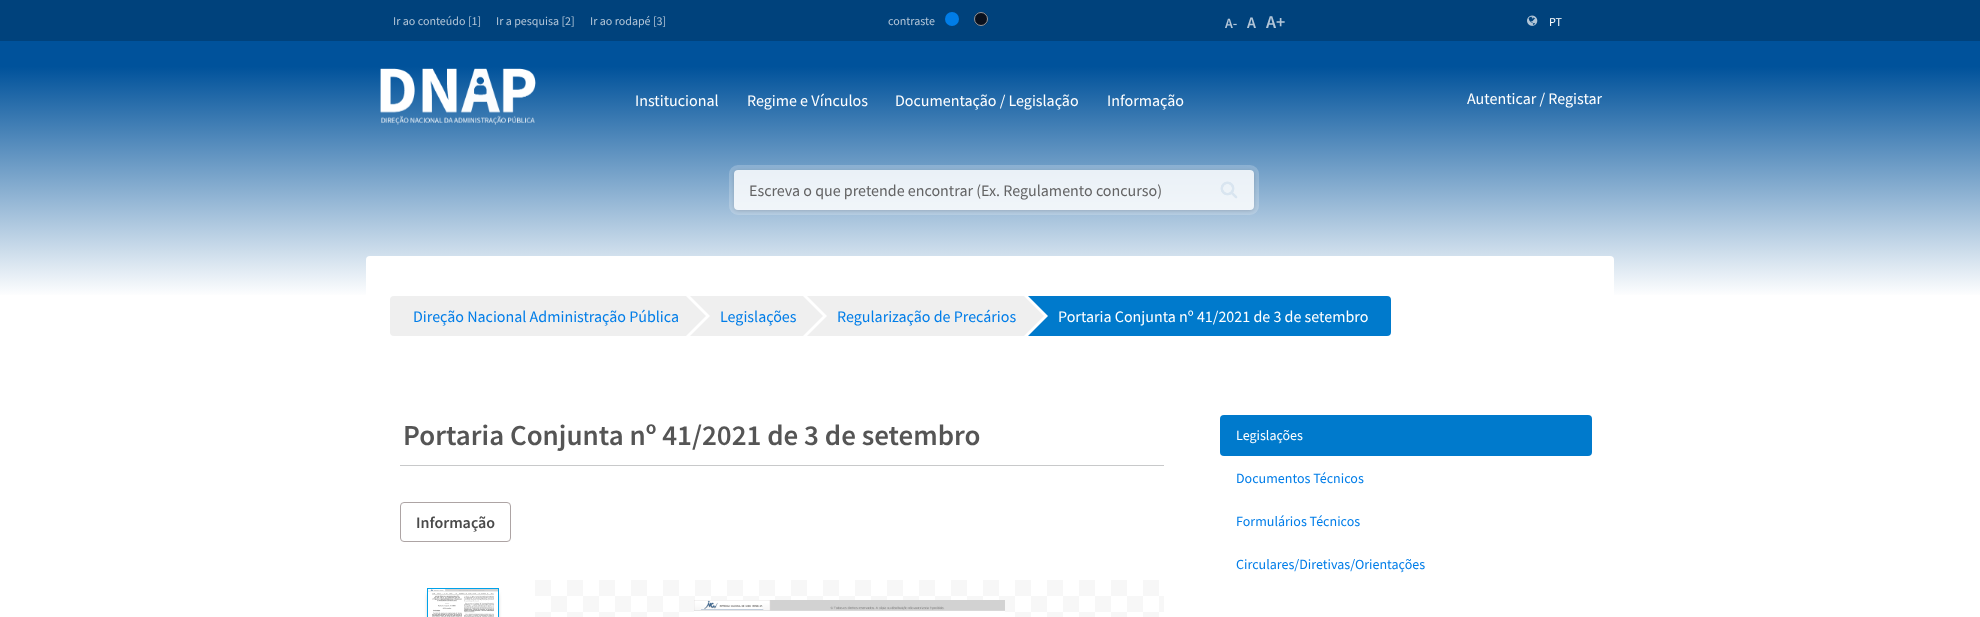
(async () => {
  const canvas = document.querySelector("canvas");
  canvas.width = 1980;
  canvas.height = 617;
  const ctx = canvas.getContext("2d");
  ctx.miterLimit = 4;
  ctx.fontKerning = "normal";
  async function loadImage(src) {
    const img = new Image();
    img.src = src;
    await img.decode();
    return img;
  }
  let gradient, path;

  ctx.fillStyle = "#ffffff";
  ctx.fillRect(0, 0, 1980, 617);
  ctx.fillStyle = "#00427c";
  ctx.fillRect(0, 0, 1980, 41);
  ctx.fillStyle = "#007de8";
  ctx.beginPath();
  ctx.arc(952, 19, 7, 0, Math.PI * 2);
  ctx.fill();
  ctx.fillStyle = "#09101d";
  ctx.beginPath();
  ctx.arc(981, 19, 7, 0, Math.PI * 2);
  ctx.fill();
  ctx.beginPath();
  ctx.arc(981, 19, 6.5, 0, Math.PI * 2);
  ctx.strokeStyle = "rgba(255, 255, 255, 0.56)";
  ctx.stroke();
  ctx.drawImage(await loadImage("img/1.png"), 1527, 15, 11, 11);
  gradient = ctx.createLinearGradient(990, 41, 990, 297);
  gradient.addColorStop(0.1, "#00529b");
  gradient.addColorStop(1, "#ffffff");
  ctx.fillStyle = gradient;
  ctx.fillRect(0, 41, 1980, 254);
  ctx.drawImage(await loadImage("img/2.png"), 380, 68, 156, 57);
  ctx.drawImage(await loadImage("img/3.png"), 1220, 181, 18, 18);
  ctx.beginPath();
  ctx.roundRect(731.5, 167.5, 525, 45, 6.5);
  ctx.strokeStyle = "rgba(255, 255, 255, 0.21)";
  ctx.lineWidth = 5;
  ctx.stroke();
  ctx.save();
  path = new Path2D("M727 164H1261V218H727ZM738 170H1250C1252 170 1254 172 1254 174V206C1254 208 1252 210 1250 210H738C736 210 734 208 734 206V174C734 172 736 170 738 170Z");
  ctx.clip(path, "evenodd");
  ctx.fillStyle = "rgba(0, 0, 0, 0.16)";
  ctx.filter = "blur(2px)";
  ctx.beginPath();
  ctx.roundRect(734, 171, 520, 40, 4);
  ctx.fill();
  ctx.filter = "none";
  ctx.restore();
  ctx.fillStyle = "rgba(255, 255, 255, 0.85)";
  ctx.beginPath();
  ctx.roundRect(734, 170, 520, 40, 4);
  ctx.fill();
  ctx.fillStyle = "#ffffff";
  ctx.beginPath();
  ctx.roundRect(366, 256, 1248, 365, 4);
  ctx.fill();
  ctx.fillStyle = "#efefef";
  ctx.beginPath();
  ctx.roundRect(390, 296, 300, 40, [4, 0, 0, 4]);
  ctx.fill();
  ctx.fillStyle = "#ffffff";
  ctx.fillRect(686, 296, 4, 40);
  ctx.fillStyle = "#efefef";
  ctx.fillRect(690, 296, 113, 40);
  ctx.fillStyle = "#ffffff";
  path = new Path2D("M690 336V296L710 316Z");
  ctx.fill(path);
  ctx.fillStyle = "#efefef";
  path = new Path2D("M686 336V296L706 316Z");
  ctx.fill(path);
  ctx.fillRect(807, 296, 217, 40);
  ctx.fillStyle = "#ffffff";
  path = new Path2D("M807 336V296L827 316Z");
  ctx.fill(path);
  ctx.fillStyle = "#efefef";
  path = new Path2D("M803 336V296L823 316Z");
  ctx.fill(path);
  ctx.fillStyle = "#007acc";
  ctx.beginPath();
  ctx.roundRect(1028, 296, 363, 40, [0, 4, 4, 0]);
  ctx.fill();
  ctx.fillStyle = "#ffffff";
  path = new Path2D("M1028 336V296L1048 316Z");
  ctx.fill(path);
  ctx.fillStyle = "#efefef";
  path = new Path2D("M1024 336V296L1044 316Z");
  ctx.fill(path);
  ctx.fillStyle = "#c8c9ca";
  ctx.fillRect(400, 465, 764, 1);
  ctx.beginPath();
  ctx.roundRect(400.5, 502.5, 110, 39, 3.5);
  ctx.strokeStyle = "#ada4a4";
  ctx.lineWidth = 1;
  ctx.stroke();
  ctx.fillStyle = "rgba(0, 0, 0, 0.8)";
  ctx.filter = "blur(2.5px)";
  ctx.beginPath();
  ctx.rect(430, 594, 66, 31);
  ctx.fill();
  ctx.filter = "none";
  ctx.drawImage(await loadImage("img/4.png"), 428, 589, 70, 28);
  ctx.strokeStyle = "#00a2ea";
  ctx.strokeRect(427.5, 588.5, 71, 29);
  ctx.drawImage(await loadImage("img/5.png"), 535, 580, 629, 37);
  ctx.drawImage(await loadImage("img/6.png"), 694, 600, 311, 17);
  ctx.fillStyle = "#007acc";
  ctx.beginPath();
  ctx.roundRect(1220, 415, 372, 41, 4);
  ctx.fill();
  ctx.font = "12px Source Sans Pro";
  ctx.fillStyle = "#b3c6d8";
  for (const [text, x, y] of [
    ["Ir ao conteúdo [1]", 393, 25],
    ["Ir a pesquisa [2]", 496, 25],
    ["Ir ao rodapé [3]", 590, 25],
    ["contraste", 888, 25],
  ]) {
    ctx.fillText(text, x, y);
  }
  ctx.font = "600 14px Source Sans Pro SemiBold";
  ctx.fillText("A-", 1225, 28);
  ctx.font = "600 16px Source Sans Pro SemiBold";
  ctx.fillText("A", 1247, 28);
  ctx.font = "600 18px Source Sans Pro SemiBold";
  ctx.fillText("A+", 1266, 28);
  ctx.font = "12px Source Sans Pro";
  ctx.fillStyle = "#ffffff";
  ctx.fillText("PT", 1549, 26);
  ctx.font = "16px Source Sans Pro";
  for (const [text, x, y] of [
    ["Institucional", 635, 106],
    ["Regime e Vínculos", 747, 106],
    ["Documentação / Legislação", 895, 106],
    ["Informação", 1107, 106],
    ["Autenticar / Registar", 1467, 104],
  ]) {
    ctx.fillText(text, x, y);
  }
  ctx.fillStyle = "#636364";
  ctx.fillText("Escreva o que pretende encontrar (Ex. Regulamento concurso)", 749, 196);
  ctx.fillStyle = "#007de8";
  for (const [text, x, y] of [
    ["Direção Nacional Administração Pública", 413, 322],
    ["Legislações", 720, 322],
    ["Regularização de Precários", 837, 322],
  ]) {
    ctx.fillText(text, x, y);
  }
  ctx.fillStyle = "#ffffff";
  ctx.fillText("Portaria Conjunta nº 41/2021 de 3 de setembro", 1058, 322);
  ctx.font = "600 29px Source Sans Pro SemiBold";
  ctx.fillStyle = "#555555";
  ctx.fillText("Portaria Conjunta nº 41/2021 de 3 de setembro", 403, 445);
  ctx.font = "600 16px Source Sans Pro SemiBold";
  ctx.fillStyle = "#4a4a4a";
  ctx.fillText("Informação", 416, 528);
  ctx.font = "14px Source Sans Pro";
  ctx.fillStyle = "#ffffff";
  ctx.fillText("Legislações", 1236, 440);
  ctx.fillStyle = "#007de8";
  for (const [text, x, y] of [
    ["Documentos Técnicos", 1236, 483],
    ["Formulários Técnicos", 1236, 526],
    ["Circulares/Diretivas/Orientações", 1236, 569],
  ]) {
    ctx.fillText(text, x, y);
  }
})();
